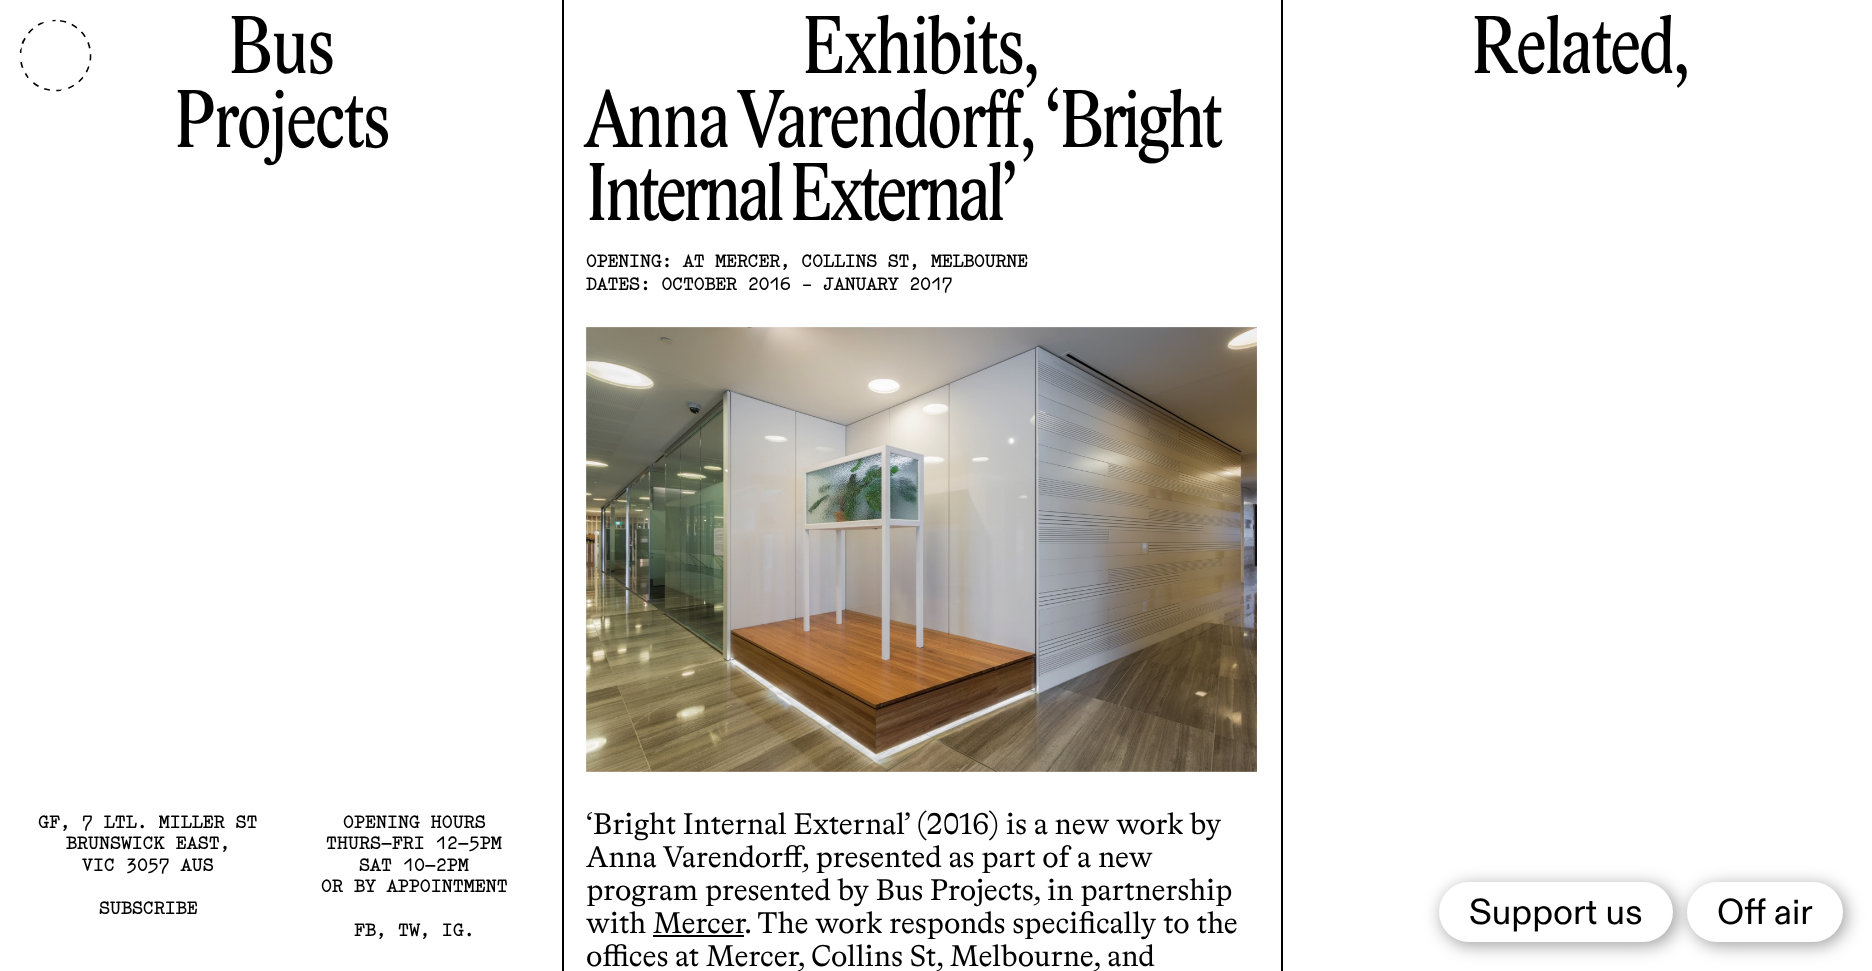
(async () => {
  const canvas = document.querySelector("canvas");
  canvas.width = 1872;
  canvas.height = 971;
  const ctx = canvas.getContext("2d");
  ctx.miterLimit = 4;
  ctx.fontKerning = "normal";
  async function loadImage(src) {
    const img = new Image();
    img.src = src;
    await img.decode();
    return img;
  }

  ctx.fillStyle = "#ffffff";
  ctx.fillRect(0, 0, 1872, 971);
  ctx.drawImage(await loadImage("img/1.png"), 19, 19, 73, 73);
  ctx.fillStyle = "#000000";
  ctx.fillRect(562, 0, 2, 971);
  ctx.drawImage(await loadImage("img/2.png"), 586, 327, 671, 445);
  ctx.fillRect(653, 935, 91, 2);
  ctx.fillRect(1281, 0, 2, 971);
  ctx.fillStyle = "rgba(0, 0, 0, 0.4)";
  ctx.filter = "blur(9px)";
  ctx.beginPath();
  ctx.roundRect(1442, 886, 235, 59, 29.5);
  ctx.fill();
  ctx.filter = "none";
  ctx.fillStyle = "#ffffff";
  ctx.beginPath();
  ctx.roundRect(1439, 882, 234, 60, 30);
  ctx.fill();
  ctx.fillStyle = "rgba(0, 0, 0, 0.4)";
  ctx.filter = "blur(9px)";
  ctx.beginPath();
  ctx.roundRect(1691, 886, 155, 59, 29.5);
  ctx.fill();
  ctx.filter = "none";
  ctx.fillStyle = "#ffffff";
  ctx.beginPath();
  ctx.roundRect(1687, 882, 156, 60, 30);
  ctx.fill();
  ctx.letterSpacing = "-1.7px";
  ctx.font = "84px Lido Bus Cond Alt";
  ctx.fillStyle = "#000000";
  ctx.fillText("Bus", 228, 73);
  ctx.fillText("Projects", 174, 147);
  ctx.letterSpacing = "0px";
  ctx.font = "bold 18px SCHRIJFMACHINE";
  for (const [text, x, y] of [
    ["GF, 7 LTL. MILLER ST", 38, 828],
    ["BRUNSWICK EAST,", 66, 849],
    ["VIC 3057 AUS", 82, 871],
    ["SUBSCRIBE", 99, 914],
    ["OPENING HOURS", 343, 828],
    ["THURS–FRI 12–5PM", 326, 849],
    ["SAT 10–2PM", 359, 871],
    ["OR BY APPOINTMENT", 321, 892],
    ["FB, TW, IG.", 354, 936],
  ]) {
    ctx.fillText(text, x, y);
  }
  ctx.letterSpacing = "-1.7px";
  ctx.font = "84px Lido Bus Cond Alt";
  ctx.fillText("Exhibits,", 802, 73);
  ctx.fillText("Anna Varendorff,", 586, 147);
  ctx.letterSpacing = "-3.5px";
  ctx.fillText("‘Bright", 1044, 147);
  ctx.fillText("Internal External’", 586, 220);
  ctx.letterSpacing = "-0.2px";
  ctx.font = "bold 18px SCHRIJFMACHINE";
  ctx.fillText("OPENING: AT MERCER, COLLINS ST, MELBOURNE", 586, 267);
  ctx.fillText("DATES: OCTOBER 2016 - JANUARY 2017", 586, 290);
  ctx.letterSpacing = "0px";
  ctx.font = "30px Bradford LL";
  for (const [text, x, y] of [
    ["‘Bright Internal External’ (2016) is a new work by", 586, 834],
    ["Anna Varendorff, presented as part of a new", 586, 867],
    ["program presented by Bus Projects, in partnership", 586, 900],
    ["with Mercer", 586, 933],
    [". The work responds specifically to the", 744, 933],
    ["offices at Mercer, Collins St, Melbourne, and", 586, 966],
  ]) {
    ctx.fillText(text, x, y);
  }
  ctx.letterSpacing = "-1.7px";
  ctx.font = "84px Lido Bus Cond Alt";
  ctx.fillText("Related,", 1471, 73);
  ctx.letterSpacing = "0px";
  ctx.font = "36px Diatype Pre";
  ctx.fillText("Support us", 1469, 924);
  ctx.fillText("Off air", 1717, 924);
})();
